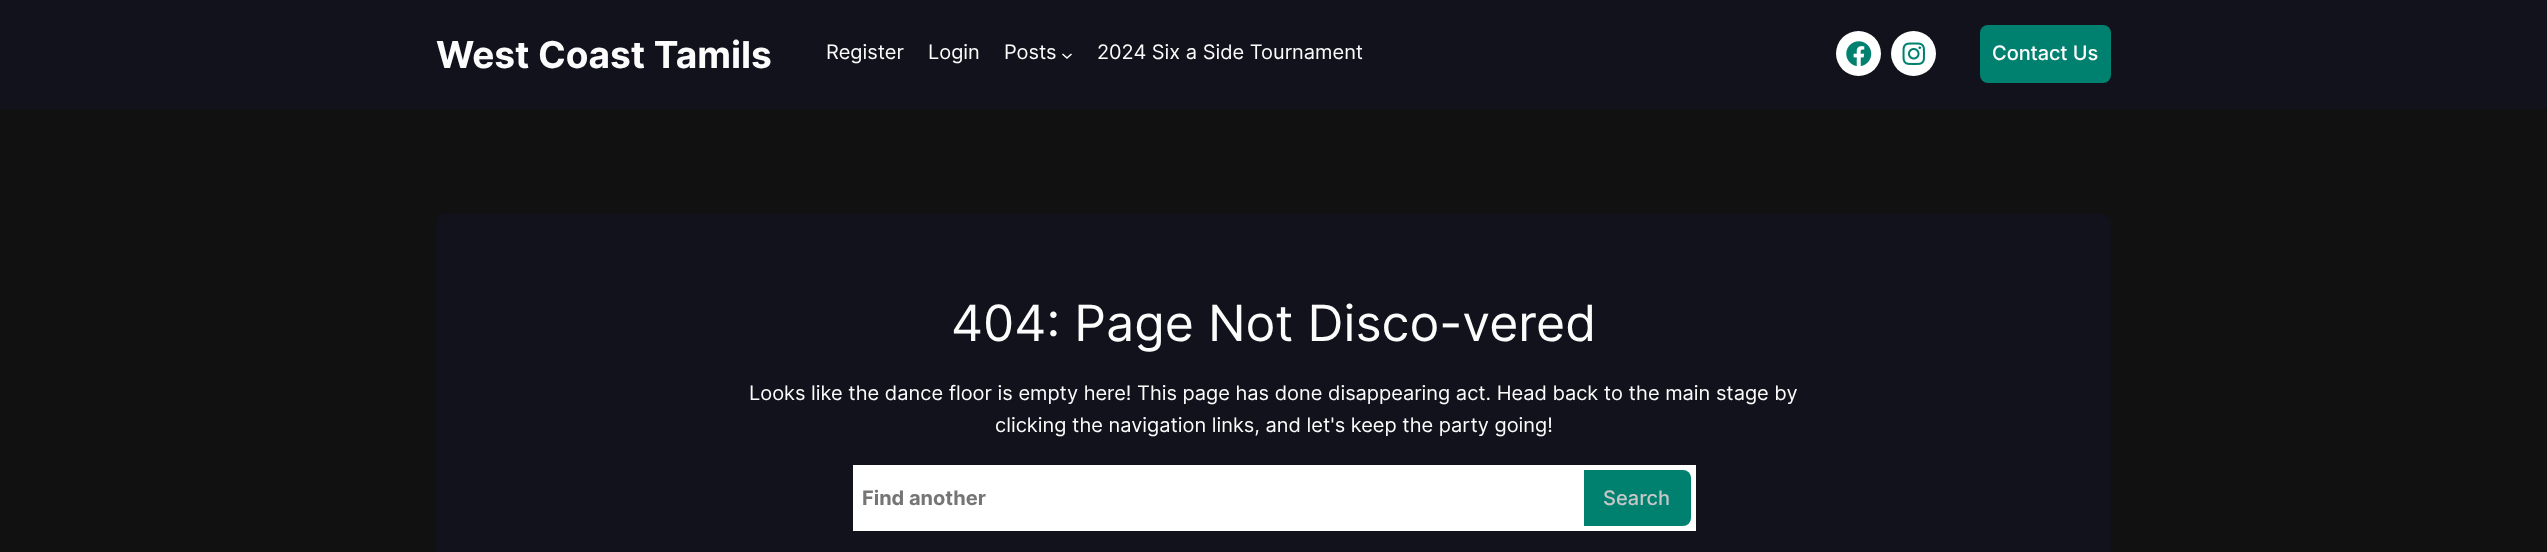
(async () => {
  const canvas = document.querySelector("canvas");
  canvas.width = 2547;
  canvas.height = 552;
  const ctx = canvas.getContext("2d");
  ctx.miterLimit = 4;
  ctx.fontKerning = "normal";
  async function loadImage(src) {
    const img = new Image();
    img.src = src;
    await img.decode();
    return img;
  }
  let path;

  ctx.fillStyle = "#111111";
  ctx.fillRect(0, 0, 2547, 552);
  ctx.fillStyle = "#12121c";
  ctx.fillRect(0, 0, 2547, 109);
  path = new Path2D("M1062.5 54L1067 58L1071.5 54");
  ctx.strokeStyle = "#ffffff";
  ctx.lineWidth = 1.5;
  ctx.stroke(path);
  ctx.fillStyle = "#ffffff";
  ctx.beginPath();
  ctx.arc(1858.5, 53.5, 22.5, 0, Math.PI * 2);
  ctx.fill();
  ctx.drawImage(await loadImage("img/1.png"), 1846, 41, 26, 26);
  ctx.beginPath();
  ctx.arc(1913.5, 53.5, 22.5, 0, Math.PI * 2);
  ctx.fill();
  ctx.drawImage(await loadImage("img/2.png"), 1902, 42, 23, 23);
  ctx.fillStyle = "#008170";
  ctx.beginPath();
  ctx.roundRect(1980, 25, 131, 58, 8);
  ctx.fill();
  ctx.fillStyle = "#12121c";
  ctx.beginPath();
  ctx.roundRect(436, 214, 1675, 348, 10);
  ctx.fill();
  ctx.fillStyle = "#ffffff";
  ctx.fillRect(853, 465, 843, 66);
  ctx.fillStyle = "#008170";
  ctx.beginPath();
  ctx.roundRect(1584, 470, 107, 56, [0, 8, 8, 0]);
  ctx.fill();
  ctx.font = "bold 37px Inter";
  ctx.fillStyle = "#fcfcfc";
  ctx.fillText("West Coast Tamils", 436, 68);
  ctx.font = "20px Inter";
  for (const [text, x, y] of [
    ["Register", 826, 59],
    ["Login", 928, 59],
    ["Posts", 1004, 59],
    ["2024 Six a Side Tournament", 1097, 59],
  ]) {
    ctx.fillText(text, x, y);
  }
  ctx.font = "500 20px Inter";
  ctx.fillText("Contact Us", 1992, 60);
  ctx.font = "50px Inter";
  ctx.fillText("404: Page Not Disco-vered", 951, 341);
  ctx.font = "20px Inter";
  ctx.fillText("Looks like the dance floor is empty here! This page has done disappearing act. Head back to the main stage by", 749, 400);
  ctx.fillText("clicking the navigation links, and let's keep the party going!", 995, 432);
  ctx.font = "bold 20px Inter";
  ctx.fillStyle = "#757575";
  ctx.fillText("Find another", 862, 505);
  ctx.font = "500 20px Inter";
  ctx.fillStyle = "#c7c7c7";
  ctx.fillText("Search", 1603, 505);
})();
